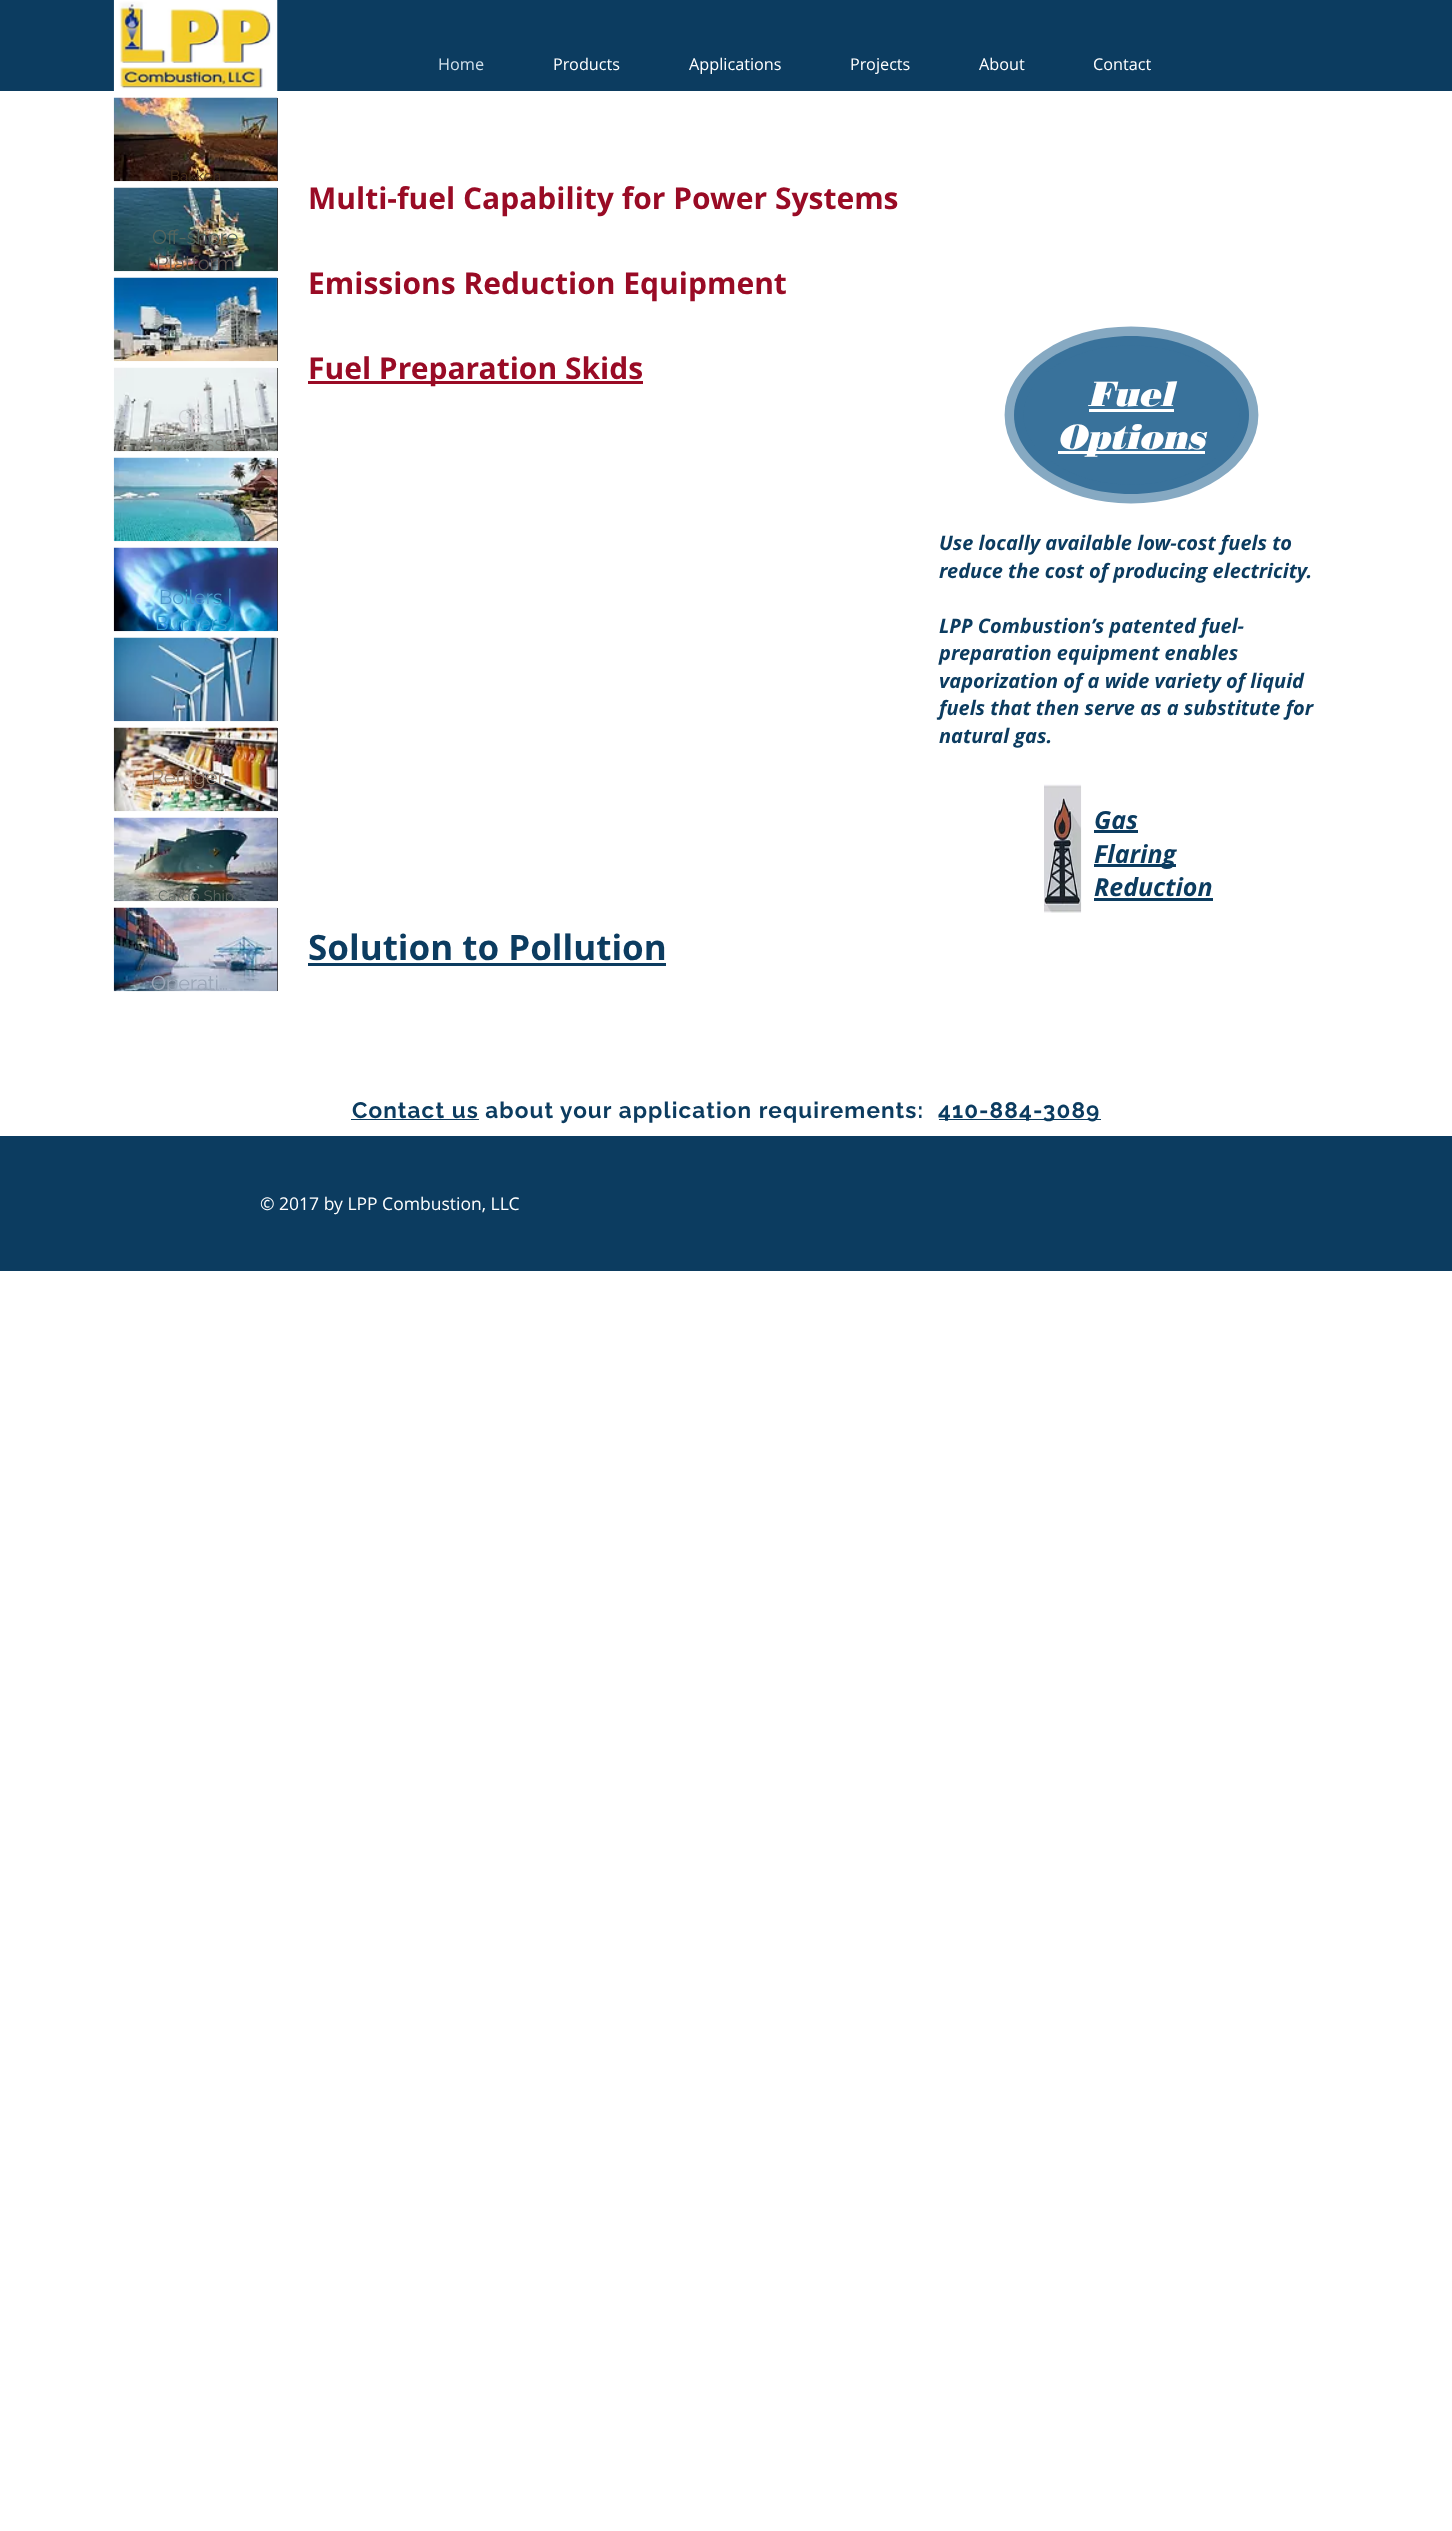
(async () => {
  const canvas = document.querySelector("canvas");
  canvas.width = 1452;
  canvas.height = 2531;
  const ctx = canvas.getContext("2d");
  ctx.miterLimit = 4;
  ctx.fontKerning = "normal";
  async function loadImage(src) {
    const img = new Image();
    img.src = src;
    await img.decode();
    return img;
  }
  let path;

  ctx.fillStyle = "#ffffff";
  ctx.fillRect(0, 0, 1452, 2531);
  ctx.fillStyle = "#0c3c60";
  ctx.fillRect(0, 0, 1452, 91);
  ctx.drawImage(await loadImage("img/1.png"), 113, 0, 165, 91);
  ctx.fillStyle = "#2f2e2e";
  ctx.fillRect(277, 98, 1, 83);
  ctx.drawImage(await loadImage("img/2.png"), 113, 97, 165, 85);
  ctx.fillRect(277, 188, 1, 83);
  ctx.drawImage(await loadImage("img/3.png"), 113, 187, 165, 85);
  ctx.fillRect(277, 278, 1, 83);
  ctx.drawImage(await loadImage("img/4.png"), 113, 277, 165, 85);
  ctx.fillRect(277, 368, 1, 83);
  ctx.drawImage(await loadImage("img/5.png"), 113, 367, 165, 85);
  ctx.fillRect(277, 458, 1, 83);
  ctx.drawImage(await loadImage("img/6.png"), 113, 457, 165, 85);
  ctx.fillRect(277, 548, 1, 83);
  ctx.drawImage(await loadImage("img/7.png"), 113, 547, 165, 85);
  ctx.fillRect(277, 638, 1, 83);
  ctx.drawImage(await loadImage("img/8.png"), 113, 637, 165, 85);
  ctx.fillRect(277, 728, 1, 83);
  ctx.drawImage(await loadImage("img/9.png"), 113, 727, 165, 85);
  ctx.fillRect(277, 818, 1, 83);
  ctx.drawImage(await loadImage("img/10.png"), 113, 817, 165, 85);
  ctx.fillRect(277, 908, 1, 83);
  ctx.drawImage(await loadImage("img/11.png"), 113, 907, 165, 85);
  ctx.fillStyle = "#990b25";
  ctx.fillRect(308, 381, 335, 3);
  ctx.fillStyle = "#39729b";
  path = new Path2D("M1249 415C1249 458 1196 494 1131 494C1066 494 1014 458 1014 415C1014 372 1066 336 1131 336C1196 336 1249 372 1249 415Z");
  ctx.fill(path);
  path = new Path2D("M1249 415C1249 458.5 1196 494 1131 494C1066.5 494 1014 458.5 1014 415C1014 371.5 1066.5 336 1131 336C1196 336 1249 371.5 1249 415Z");
  ctx.strokeStyle = "rgba(57, 114, 155, 0.61)";
  ctx.lineWidth = 18.8;
  ctx.stroke(path);
  ctx.fillStyle = "#ffffff";
  ctx.fillRect(1089, 409, 85, 3);
  ctx.fillRect(1058, 451, 147, 3);
  ctx.drawImage(await loadImage("img/12.png"), 1044, 784, 38, 129);
  for (const [x, y, w, h, color] of [
    [1094, 830, 44, 3, "#0c3c60"],
    [1094, 864, 82, 3, "#0c3c60"],
    [1094, 898, 119, 3, "#0c3c60"],
    [308, 963, 358, 3, "#0c3c60"],
    [351, 1119, 128, 1, "#0c3c60"],
    [939, 1119, 162, 1, "#0c3c60"],
    [0, 1136, 1452, 135, "#0c3c60"],
  ]) {
    ctx.fillStyle = color;
    ctx.fillRect(x, y, w, h);
  }
  ctx.font = "16.25px Open Sans";
  ctx.fillStyle = "#d1e0eb";
  ctx.fillText("Home", 438, 70);
  ctx.fillStyle = "#ffffff";
  for (const [text, x, y] of [
    ["Products", 553, 70],
    ["Applications", 689, 70],
    ["Projects", 850, 70],
    ["About", 979, 70],
    ["Contact", 1093, 70],
  ]) {
    ctx.fillText(text, x, y);
  }
  ctx.save();
  ctx.beginPath();
  ctx.rect(151, 168, 89, 13);
  ctx.clip();
  ctx.font = "15px Raleway";
  ctx.fillStyle = "#47301d";
  ctx.fillText("Bakken", 170, 181);
  ctx.restore();
  ctx.font = "20px Raleway";
  ctx.fillStyle = "#55655f";
  ctx.fillText("Off-shore", 152, 244);
  ctx.fillStyle = "#5e5551";
  ctx.fillText("Platform", 156, 270);
  ctx.fillStyle = "#d1d4d7";
  ctx.fillText("Gas", 178, 424);
  ctx.fillStyle = "#888b86";
  ctx.fillText("Processi…", 151, 450);
  ctx.fillStyle = "#5198cb";
  ctx.fillText("Boilers |", 159, 604);
  ctx.save();
  ctx.beginPath();
  ctx.rect(151, 585, 89, 46);
  ctx.clip();
  ctx.fillStyle = "#309bd2";
  ctx.fillText("Burners |", 155, 630);
  ctx.restore();
  ctx.fillStyle = "#9b8474";
  ctx.fillText("Refriger…", 151, 784);
  ctx.save();
  ctx.beginPath();
  ctx.rect(151, 888, 89, 13);
  ctx.clip();
  ctx.font = "15px Raleway";
  ctx.fillStyle = "#5e6863";
  ctx.fillText("Cargo Ship", 158, 901);
  ctx.restore();
  ctx.save();
  ctx.beginPath();
  ctx.rect(151, 945, 89, 46);
  ctx.clip();
  ctx.fillStyle = "#9ca7b8";
  ctx.fillText("Operati…", 151, 990);
  ctx.restore();
  ctx.font = "bold 30px Open Sans";
  ctx.fillStyle = "#990b25";
  for (const [text, x, y] of [
    ["Multi-fuel Capability for Power Systems", 308, 209],
    ["Emissions Reduction Equipment", 308, 294],
    ["Fuel Preparation Skids", 308, 379],
  ]) {
    ctx.fillText(text, x, y);
  }
  ctx.font = "italic 900 35px 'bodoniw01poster'";
  ctx.fillStyle = "#ffffff";
  ctx.fillText("Fuel", 1088, 406);
  ctx.fillText("Options", 1057, 449);
  ctx.font = "italic bold 20px Open Sans";
  ctx.fillStyle = "#0c3c60";
  for (const [text, x, y] of [
    ["Use locally available low-cost fuels to", 939, 550],
    ["reduce the cost of producing electricity.", 939, 578],
    ["LPP Combustion’s patented fuel-", 939, 633],
    ["preparation equipment enables", 939, 660],
    ["vaporization of a wide variety of liquid", 939, 688],
    ["fuels that then serve as a substitute for", 939, 715],
    ["natural gas.", 939, 743],
  ]) {
    ctx.fillText(text, x, y);
  }
  ctx.font = "italic bold 25px Open Sans";
  for (const [text, x, y] of [
    ["Gas", 1094, 829],
    ["Flaring", 1094, 863],
    ["Reduction", 1094, 896],
  ]) {
    ctx.fillText(text, x, y);
  }
  ctx.font = "bold 35px Open Sans";
  ctx.fillText("Solution to Pollution", 308, 960);
  ctx.letterSpacing = "1.1px";
  ctx.font = "bold 22.5px Raleway";
  ctx.fillText("Contact us about your application requirements:", 352, 1118);
  ctx.fillText("410-884-3089", 938, 1118);
  ctx.letterSpacing = "0px";
  ctx.font = "17.5px Open Sans";
  ctx.fillStyle = "#ffffff";
  ctx.fillText("© 2017 by LPP Combustion, LLC", 260, 1210);
})();
